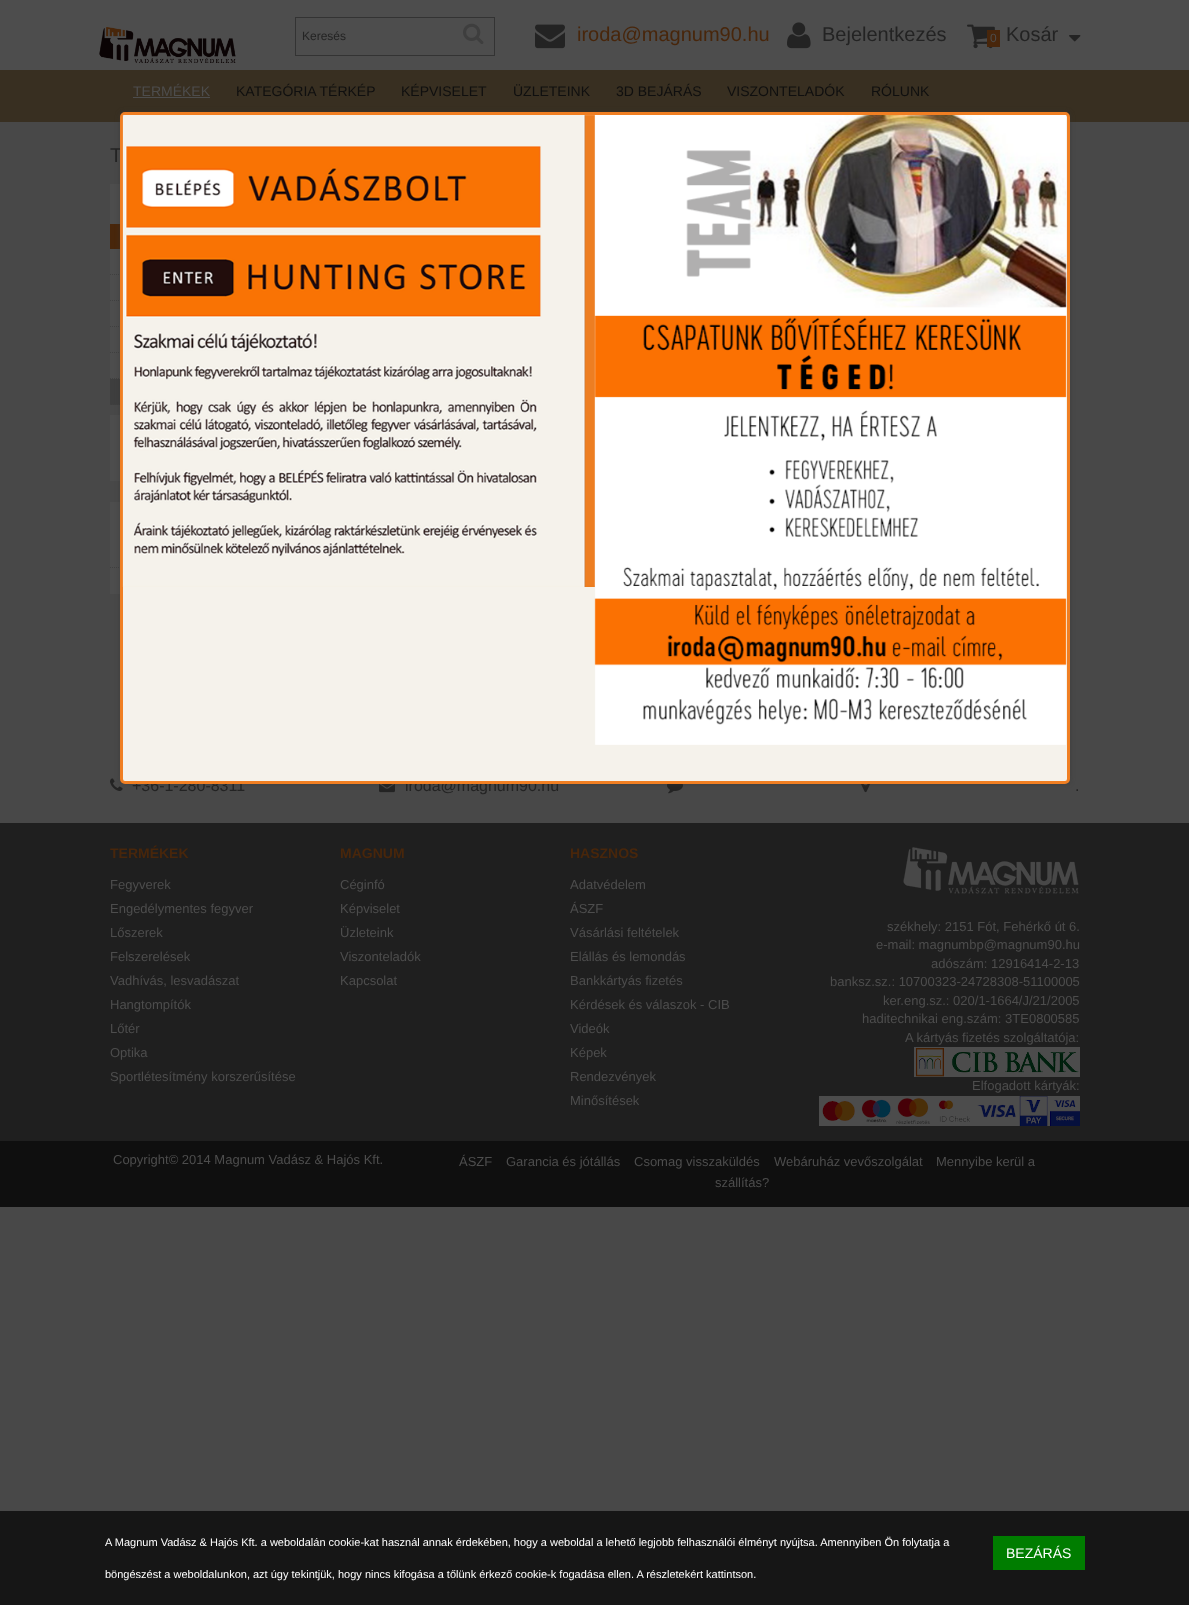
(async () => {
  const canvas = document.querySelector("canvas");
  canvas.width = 1189;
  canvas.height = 1605;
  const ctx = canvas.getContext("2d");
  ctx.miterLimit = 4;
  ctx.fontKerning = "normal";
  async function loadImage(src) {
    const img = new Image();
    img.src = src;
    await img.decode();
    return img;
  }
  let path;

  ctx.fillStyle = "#484848";
  ctx.fillRect(0, 0, 1189, 1605);
  ctx.fillStyle = "#4d4d4d";
  ctx.fillRect(0, 0, 1189, 70);
  ctx.drawImage(await loadImage("img/1.png"), 99, 27, 137, 36);
  ctx.strokeStyle = "#333333";
  ctx.strokeRect(295.5, 17.5, 199, 38);
  ctx.drawImage(await loadImage("img/2.png"), 463, 23, 21, 21);
  ctx.drawImage(await loadImage("img/3.png"), 535, 24, 30, 25);
  ctx.drawImage(await loadImage("img/4.png"), 787, 22, 24, 27);
  ctx.drawImage(await loadImage("img/5.png"), 967, 24, 28, 25);
  ctx.fillStyle = "#48260b";
  ctx.fillRect(987, 30, 13, 17);
  ctx.drawImage(await loadImage("img/6.png"), 1069, 35, 12, 7);
  for (const [x, y, w, h, color] of [
    [0, 70, 1189, 52, "#382f21"],
    [133, 97, 77, 1, "#4d4d4d"],
    [110, 184, 10, 195, "#4d4d4d"],
    [110, 224, 10, 25, "#48260b"],
  ]) {
    ctx.fillStyle = color;
    ctx.fillRect(x, y, w, h);
  }
  path = new Path2D("M110 274.5H246");
  ctx.strokeStyle = "#404040";
  ctx.setLineDash([1, 1]);
  ctx.stroke(path);
  path = new Path2D("M110 300.5H246");
  ctx.stroke(path);
  path = new Path2D("M110 326.5H246");
  ctx.stroke(path);
  path = new Path2D("M110 352.5H246");
  ctx.stroke(path);
  path = new Path2D("M110 378.5H246");
  ctx.stroke(path);
  ctx.fillStyle = "#3e3e3e";
  ctx.fillRect(110, 379, 10, 26);
  path = new Path2D("M110 404.5H246");
  ctx.stroke(path);
  ctx.fillStyle = "#4d4d4d";
  ctx.fillRect(110, 415, 10, 66);
  ctx.fillRect(110, 502, 10, 92);
  path = new Path2D("M110 567.5H246");
  ctx.stroke(path);
  ctx.drawImage(await loadImage("img/7.png"), 110, 778, 13, 13);
  ctx.drawImage(await loadImage("img/8.png"), 379, 784, 16, 9);
  ctx.drawImage(await loadImage("img/9.png"), 667, 784, 16, 10);
  ctx.drawImage(await loadImage("img/10.png"), 861, 784, 9, 9);
  ctx.fillStyle = "#1f1f1f";
  ctx.fillRect(0, 823, 1189, 318);
  ctx.drawImage(await loadImage("img/11.png"), 903, 847, 176, 47);
  ctx.drawImage(await loadImage("img/12.png"), 914, 1047, 166, 30);
  ctx.drawImage(await loadImage("img/13.png"), 819, 1096, 261, 30);
  ctx.fillStyle = "#0f0f0f";
  ctx.fillRect(0, 1141, 1189, 66);
  ctx.fillStyle = "rgba(50, 50, 50, 0.5)";
  ctx.filter = "blur(2.5px)";
  ctx.beginPath();
  ctx.roundRect(120, 112, 950, 672, 5);
  ctx.fill();
  ctx.filter = "none";
  ctx.fillStyle = "#161616";
  ctx.fillRect(0, 1511, 1189, 94);
  ctx.fillStyle = "#007d00";
  ctx.fillRect(993, 1536, 92, 34);
  ctx.font = "12px Liberation Sans";
  ctx.fillStyle = "#232323";
  ctx.fillText("Keresés", 302, 40);
  ctx.font = "20px Liberation Sans";
  ctx.fillStyle = "#48260b";
  ctx.fillText("iroda@magnum90.hu", 577, 41);
  ctx.fillStyle = "#232323";
  ctx.fillText("Bejelentkezés", 822, 41);
  ctx.font = "12px Liberation Sans";
  ctx.fillStyle = "#4d4d4d";
  ctx.fillText("0", 990, 42);
  ctx.font = "20px Liberation Sans";
  ctx.fillStyle = "#232323";
  ctx.fillText("Kosár", 1006, 41);
  ctx.font = "14px Liberation Sans";
  ctx.fillStyle = "#4d4d4d";
  ctx.fillText("TERMÉKEK", 133, 96);
  ctx.fillStyle = "#0f0f0f";
  for (const [text, x, y] of [
    ["KATEGÓRIA TÉRKÉP", 236, 96],
    ["KÉPVISELET", 401, 96],
    ["ÜZLETEINK", 513, 96],
    ["3D BEJÁRÁS", 616, 96],
    ["VISZONTELADÓK", 727, 96],
    ["RÓLUNK", 871, 96],
  ]) {
    ctx.fillText(text, x, y);
  }
  ctx.font = "20px Liberation Sans";
  ctx.fillStyle = "#232323";
  ctx.fillText("T", 110, 162);
  ctx.font = "16px Liberation Sans";
  for (const [text, x, y] of [
    ["+36-1-280-8311", 132, 791],
    ["iroda@magnum90.hu", 405, 791],
    [".", 1075, 791],
  ]) {
    ctx.fillText(text, x, y);
  }
  ctx.font = "bold 14px Liberation Sans";
  ctx.fillStyle = "#48260b";
  ctx.fillText("TERMÉKEK", 110, 858);
  ctx.font = "13px Liberation Sans";
  ctx.fillStyle = "#4d4d4d";
  for (const [text, x, y] of [
    ["Fegyverek", 110, 889],
    ["Engedélymentes fegyver", 110, 913],
    ["Lőszerek", 110, 937],
    ["Felszerelések", 110, 961],
    ["Vadhívás, lesvadászat", 110, 985],
    ["Hangtompítók", 110, 1009],
    ["Lőtér", 110, 1033],
    ["Optika", 110, 1057],
    ["Sportlétesítmény korszerűsítése", 110, 1081],
  ]) {
    ctx.fillText(text, x, y);
  }
  ctx.font = "bold 14px Liberation Sans";
  ctx.fillStyle = "#48260b";
  ctx.fillText("MAGNUM", 340, 858);
  ctx.font = "13px Liberation Sans";
  ctx.fillStyle = "#4d4d4d";
  for (const [text, x, y] of [
    ["Céginfó", 340, 889],
    ["Képviselet", 340, 913],
    ["Üzleteink", 340, 937],
    ["Viszonteladók", 340, 961],
    ["Kapcsolat", 340, 985],
  ]) {
    ctx.fillText(text, x, y);
  }
  ctx.font = "bold 14px Liberation Sans";
  ctx.fillStyle = "#48260b";
  ctx.fillText("HASZNOS", 570, 858);
  ctx.font = "13px Liberation Sans";
  ctx.fillStyle = "#4d4d4d";
  for (const [text, x, y] of [
    ["Adatvédelem", 570, 889],
    ["ÁSZF", 570, 913],
    ["Vásárlási feltételek", 570, 937],
    ["Elállás és lemondás", 570, 961],
    ["Bankkártyás fizetés", 570, 985],
    ["Kérdések és válaszok - CIB", 570, 1009],
    ["Videók", 570, 1033],
    ["Képek", 570, 1057],
    ["Rendezvények", 570, 1081],
    ["Minősítések", 570, 1105],
    ["székhely: 2151 Fót, Fehérkő út 6.", 887, 931],
    ["e-mail: magnumbp@magnum90.hu", 876, 949],
    ["adószám: 12916414-2-13", 931, 968],
    ["banksz.sz.: 10700323-24728308-51100005", 830, 986],
    ["ker.eng.sz.: 020/1-1664/J/21/2005", 883, 1005],
    ["haditechnikai eng.szám: 3TE0800585", 862, 1023],
    ["A kártyás fizetés szolgáltatója:", 905, 1042],
    ["Elfogadott kártyák:", 972, 1090],
    ["Copyright© 2014 Magnum Vadász & Hajós Kft.", 113, 1164],
    ["ÁSZF", 459, 1166],
    ["Garancia és jótállás", 506, 1166],
    ["Csomag visszaküldés", 634, 1166],
    ["Webáruház vevőszolgálat", 774, 1166],
    ["Mennyibe kerül a", 936, 1166],
    ["szállítás?", 715, 1187],
  ]) {
    ctx.fillText(text, x, y);
  }
  ctx.fillStyle = "#f5f2eb";
  ctx.beginPath();
  ctx.roundRect(121.5, 113.5, 947, 669, 3.5);
  ctx.fill();
  ctx.strokeStyle = "#f07f23";
  ctx.lineWidth = 3;
  ctx.setLineDash([]);
  ctx.stroke();
  ctx.drawImage(await loadImage("img/14.png"), 122, 115, 473, 472);
  ctx.drawImage(await loadImage("img/15.png"), 594, 115, 473, 630);
  ctx.font = "11px Liberation Sans";
  ctx.fillStyle = "#ffffff";
  ctx.fillText("A Magnum Vadász & Hajós Kft. a weboldalán cookie-kat használ annak érdekében, hogy a weboldal a lehető legjobb felhasználói élményt nyújtsa. Amennyiben Ön folytatja a", 105, 1546);
  ctx.fillText("böngészést a weboldalunkon, azt úgy tekintjük, hogy nincs kifogása a tőlünk érkező cookie-k fogadása ellen. A részletekért kattintson.", 105, 1578);
  ctx.font = "14px Liberation Sans";
  ctx.fillText("BEZÁRÁS", 1006, 1558);
})();
